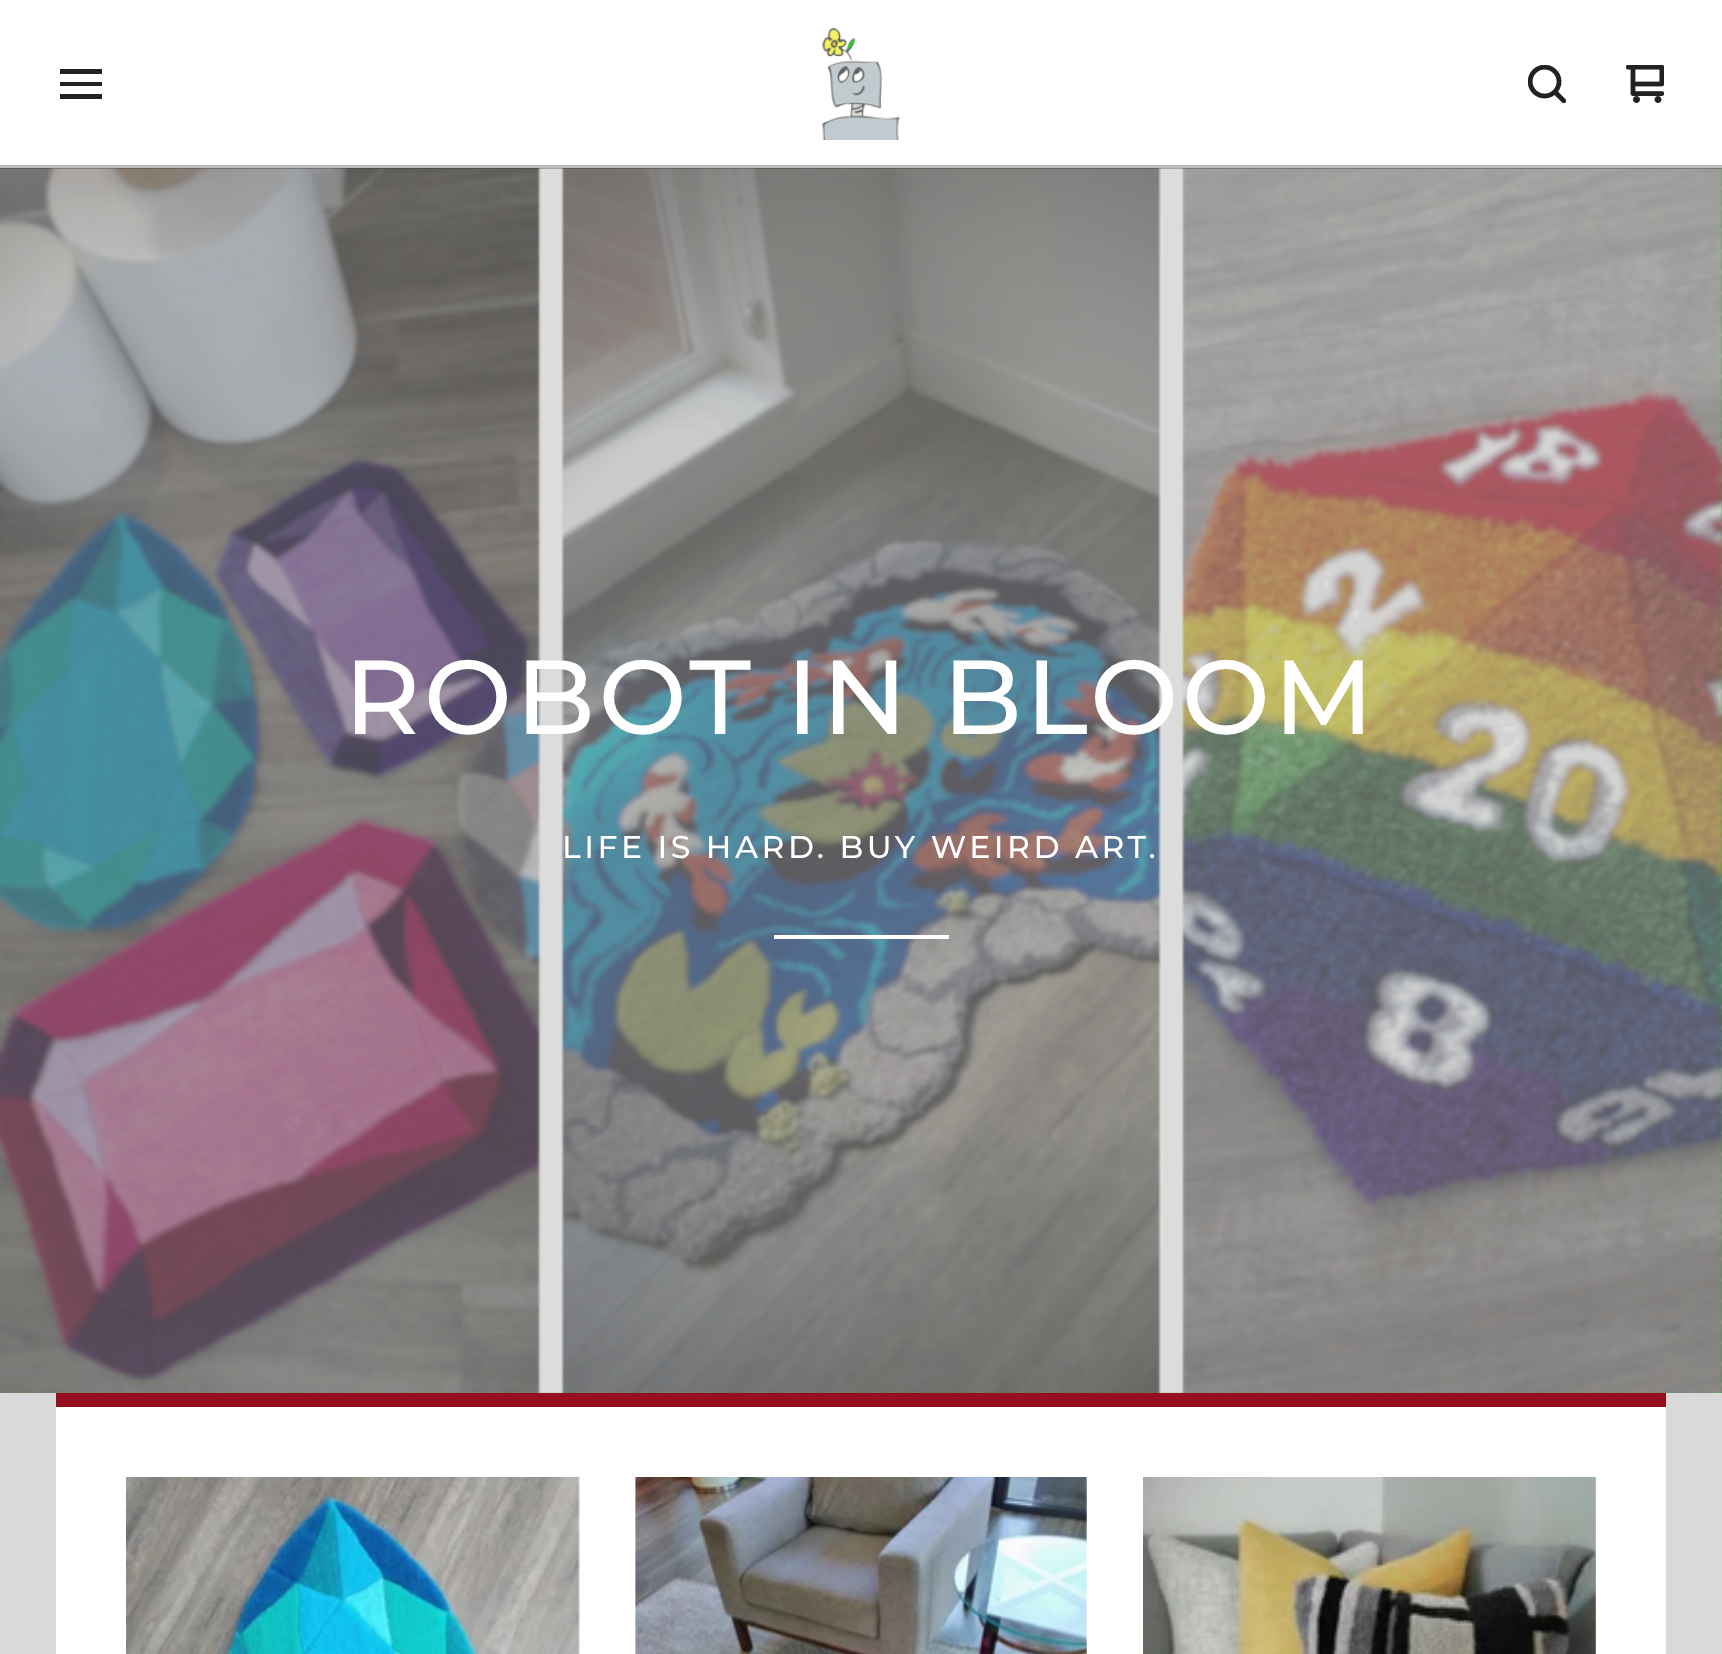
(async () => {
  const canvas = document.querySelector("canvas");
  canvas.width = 1722;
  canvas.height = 1654;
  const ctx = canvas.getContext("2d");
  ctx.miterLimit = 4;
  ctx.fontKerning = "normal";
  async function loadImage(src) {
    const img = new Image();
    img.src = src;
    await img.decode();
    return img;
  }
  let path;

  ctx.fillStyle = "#d9d9d9";
  ctx.fillRect(0, 0, 1722, 1654);
  ctx.fillStyle = "#ffffff";
  ctx.fillRect(0, 0, 1722, 168);
  ctx.fillStyle = "#1eb71e";
  ctx.fillRect(0, 168, 1722, 1225);
  ctx.drawImage(await loadImage("img/4.png"), 10, 168, 1712, 1225);
  ctx.drawImage(await loadImage("img/5.png"), 0, 168, 1722, 1225);
  ctx.fillStyle = "rgba(34, 34, 34, 0.3)";
  ctx.fillRect(0, 165, 1722, 4);
  ctx.fillStyle = "#222222";
  path = new Path2D("M60 69V74H102V69ZM60 82V86H102V82ZM60 94V99H102V94Z");
  ctx.fill(path);
  ctx.drawImage(await loadImage("img/1.png"), 822, 28, 78, 112);
  ctx.drawImage(await loadImage("img/2.png"), 1528, 65, 38, 38);
  ctx.drawImage(await loadImage("img/3.png"), 1626, 65, 38, 38);
  for (const [x, y, w, h, color] of [
    [774, 935, 175, 4, "#ffffff"],
    [56, 1393, 1610, 14, "#950f1e"],
    [56, 1407, 1610, 247, "#ffffff"],
  ]) {
    ctx.fillStyle = color;
    ctx.fillRect(x, y, w, h);
  }
  ctx.drawImage(await loadImage("img/6.png"), 126, 1477, 454, 177);
  ctx.drawImage(await loadImage("img/7.png"), 635, 1477, 452, 177);
  ctx.drawImage(await loadImage("img/8.png"), 1143, 1477, 453, 177);
  ctx.letterSpacing = "3.5px";
  ctx.font = "500 105px Montserrat";
  ctx.fillText("ROBOT IN BLOOM", 344, 734);
  ctx.font = "500 31.5px Montserrat";
  ctx.fillText("LIFE IS HARD. BUY WEIRD ART.", 562, 858);
})();
